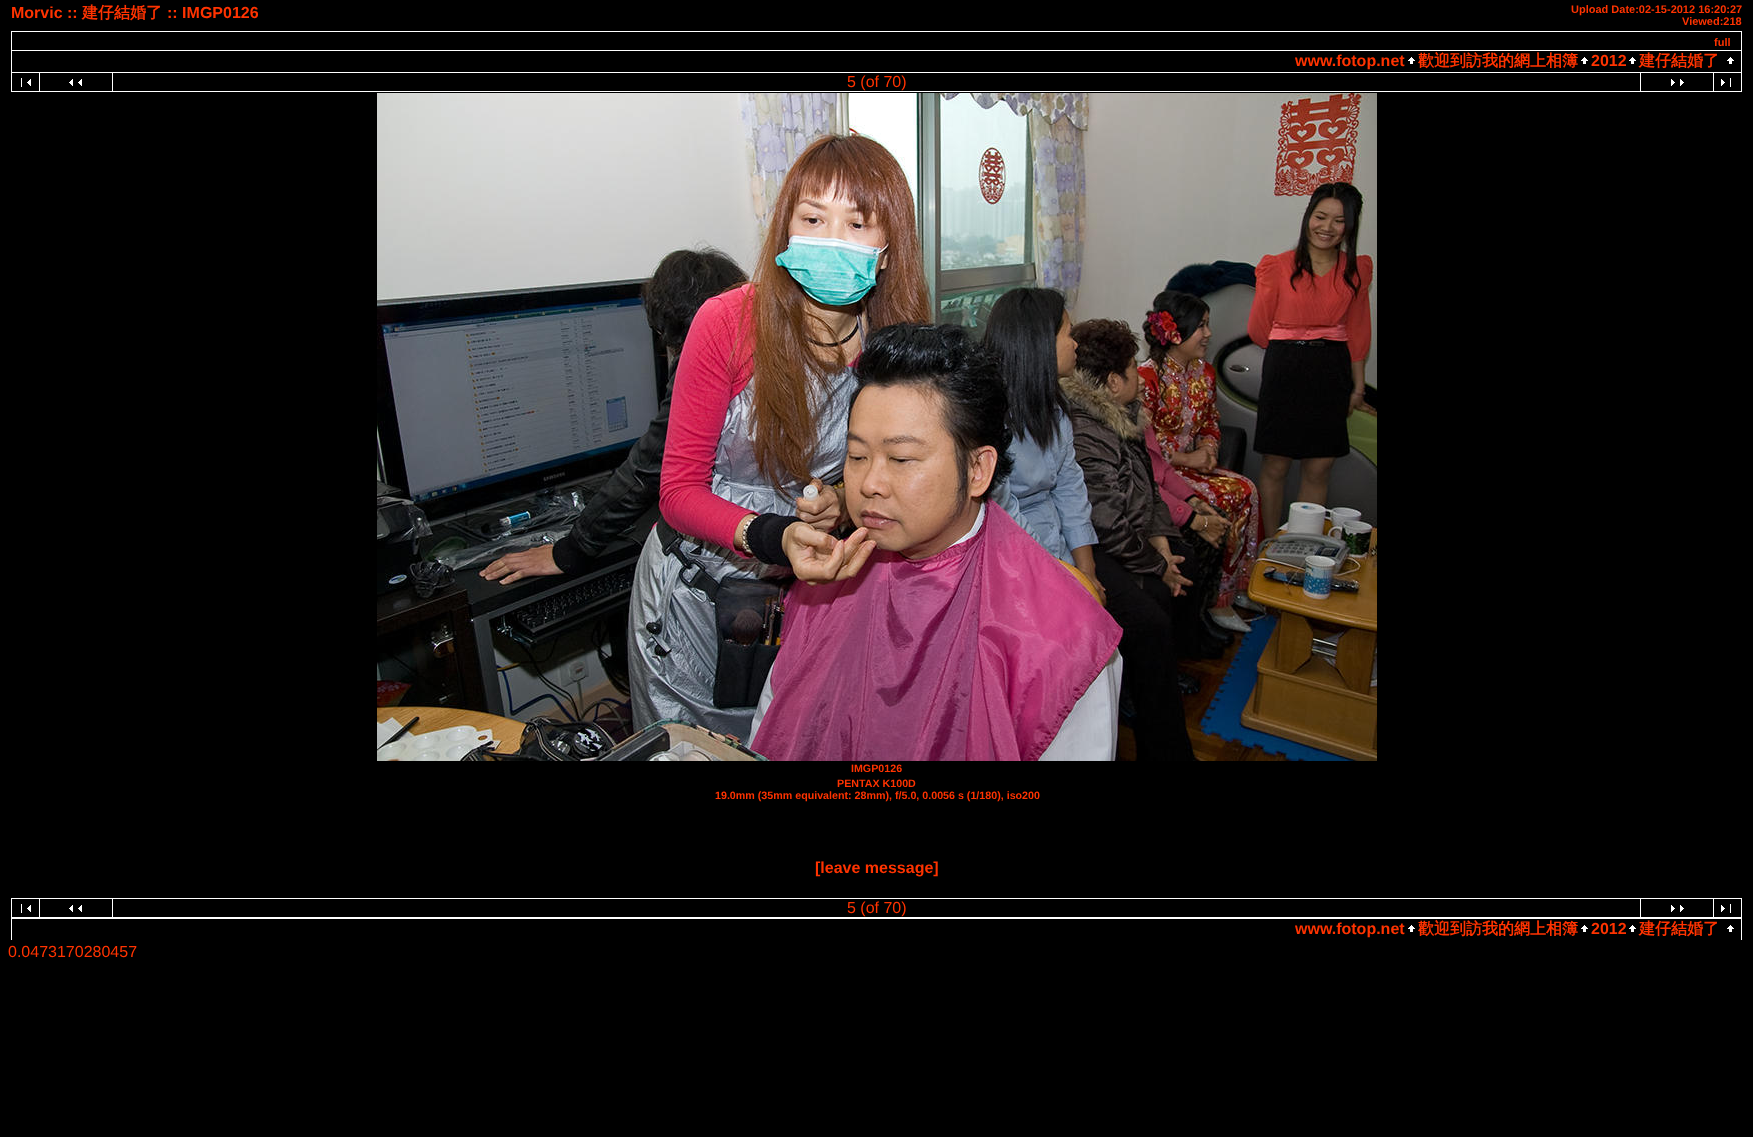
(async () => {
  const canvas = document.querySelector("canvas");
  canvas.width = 1753;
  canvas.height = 1137;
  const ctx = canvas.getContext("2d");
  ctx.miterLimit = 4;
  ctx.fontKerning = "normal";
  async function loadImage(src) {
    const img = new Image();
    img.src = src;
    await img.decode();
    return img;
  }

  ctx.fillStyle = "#000000";
  ctx.fillRect(0, 0, 1753, 1137);
  for (const [x, y, w, h, color] of [
    [11, 31, 1731, 1, "#ffffff"],
    [11, 32, 1, 18, "#ffffff"],
    [1741, 32, 1, 18, "#ffffff"],
    [11, 50, 1731, 1, "#ffffff"],
    [11, 51, 1, 21, "#ffffff"],
  ]) {
    ctx.fillStyle = color;
    ctx.fillRect(x, y, w, h);
  }
  ctx.drawImage(await loadImage("img/1.png"), 1408, 57, 7, 7);
  ctx.drawImage(await loadImage("img/1.png"), 1581, 57, 7, 7);
  ctx.drawImage(await loadImage("img/1.png"), 1629, 57, 7, 7);
  ctx.drawImage(await loadImage("img/1.png"), 1727, 57, 7, 7);
  for (const [x, y, w, h, color] of [
    [1741, 51, 1, 21, "#ffffff"],
    [11, 72, 1731, 1, "#ffffff"],
    [11, 73, 1, 18, "#ffffff"],
  ]) {
    ctx.fillStyle = color;
    ctx.fillRect(x, y, w, h);
  }
  ctx.drawImage(await loadImage("img/2.png"), 21, 78, 10, 9);
  ctx.fillRect(39, 73, 1, 18);
  ctx.drawImage(await loadImage("img/3.png"), 69, 79, 13, 7);
  ctx.fillRect(112, 73, 1, 18);
  ctx.fillRect(1640, 73, 1, 18);
  ctx.drawImage(await loadImage("img/4.png"), 1671, 79, 13, 7);
  ctx.fillRect(1713, 73, 1, 18);
  ctx.drawImage(await loadImage("img/5.png"), 1721, 78, 10, 9);
  ctx.fillRect(1741, 73, 1, 18);
  ctx.fillRect(11, 91, 1731, 1);
  ctx.drawImage(await loadImage("img/6.png"), 377, 93, 1000, 668);
  ctx.fillRect(11, 898, 1731, 1);
  ctx.fillRect(11, 899, 1, 18);
  ctx.drawImage(await loadImage("img/2.png"), 21, 904, 10, 9);
  ctx.fillRect(39, 899, 1, 18);
  ctx.drawImage(await loadImage("img/3.png"), 69, 905, 13, 7);
  ctx.fillRect(112, 899, 1, 18);
  ctx.fillRect(1640, 899, 1, 18);
  ctx.drawImage(await loadImage("img/4.png"), 1671, 905, 13, 7);
  ctx.fillRect(1713, 899, 1, 18);
  ctx.drawImage(await loadImage("img/5.png"), 1721, 904, 10, 9);
  for (const [x, y, w, h, color] of [
    [1741, 899, 1, 18, "#ffffff"],
    [11, 917, 1731, 2, "#ffffff"],
    [11, 919, 1, 21, "#ffffff"],
  ]) {
    ctx.fillStyle = color;
    ctx.fillRect(x, y, w, h);
  }
  ctx.drawImage(await loadImage("img/1.png"), 1408, 925, 7, 7);
  ctx.drawImage(await loadImage("img/1.png"), 1581, 925, 7, 7);
  ctx.drawImage(await loadImage("img/1.png"), 1629, 925, 7, 7);
  ctx.drawImage(await loadImage("img/1.png"), 1727, 925, 7, 7);
  ctx.fillRect(1741, 919, 1, 21);
  ctx.font = "bold 16px Liberation Sans";
  ctx.fillStyle = "#ff3300";
  ctx.fillText("Morvic ::", 11, 18);
  ctx.font = "bold 16px WenQuanYi Zen Hei";
  ctx.fillText("建仔結婚了", 82, 18);
  ctx.font = "bold 16px Liberation Sans";
  ctx.fillText(":: IMGP0126", 167, 18);
  ctx.font = "bold 11px Liberation Sans";
  for (const [text, x, y] of [
    ["Upload Date:02-15-2012 16:20:27", 1571, 13],
    ["Viewed:218", 1682, 25],
    ["full", 1714, 46],
  ]) {
    ctx.fillText(text, x, y);
  }
  ctx.font = "bold 16px Liberation Sans";
  ctx.fillText("www.fotop.net", 1295, 66);
  ctx.font = "bold 16px WenQuanYi Zen Hei";
  ctx.fillText("歡迎到訪我的網上相簿", 1418, 66);
  ctx.font = "bold 16px Liberation Sans";
  ctx.fillText("2012", 1591, 66);
  ctx.font = "bold 16px WenQuanYi Zen Hei";
  ctx.fillText("建仔結婚了", 1639, 66);
  ctx.font = "16px Liberation Sans";
  ctx.fillText("5 (of 70)", 847, 87);
  ctx.font = "bold 10.7px Liberation Sans";
  for (const [text, x, y] of [
    ["IMGP0126", 851, 772],
    ["PENTAX K100D", 837, 787],
    ["19.0mm (35mm equivalent: 28mm), f/5.0, 0.0056 s (1/180), iso200", 715, 799],
  ]) {
    ctx.fillText(text, x, y);
  }
  ctx.font = "bold 16px Liberation Sans";
  ctx.fillText("[leave message]", 815, 873);
  ctx.font = "16px Liberation Sans";
  ctx.fillText("5 (of 70)", 847, 913);
  ctx.font = "bold 16px Liberation Sans";
  ctx.fillText("www.fotop.net", 1295, 934);
  ctx.font = "bold 16px WenQuanYi Zen Hei";
  ctx.fillText("歡迎到訪我的網上相簿", 1418, 934);
  ctx.font = "bold 16px Liberation Sans";
  ctx.fillText("2012", 1591, 934);
  ctx.font = "bold 16px WenQuanYi Zen Hei";
  ctx.fillText("建仔結婚了", 1639, 934);
  ctx.font = "16px Liberation Sans";
  ctx.fillText("0.0473170280457", 8, 957);
})();
